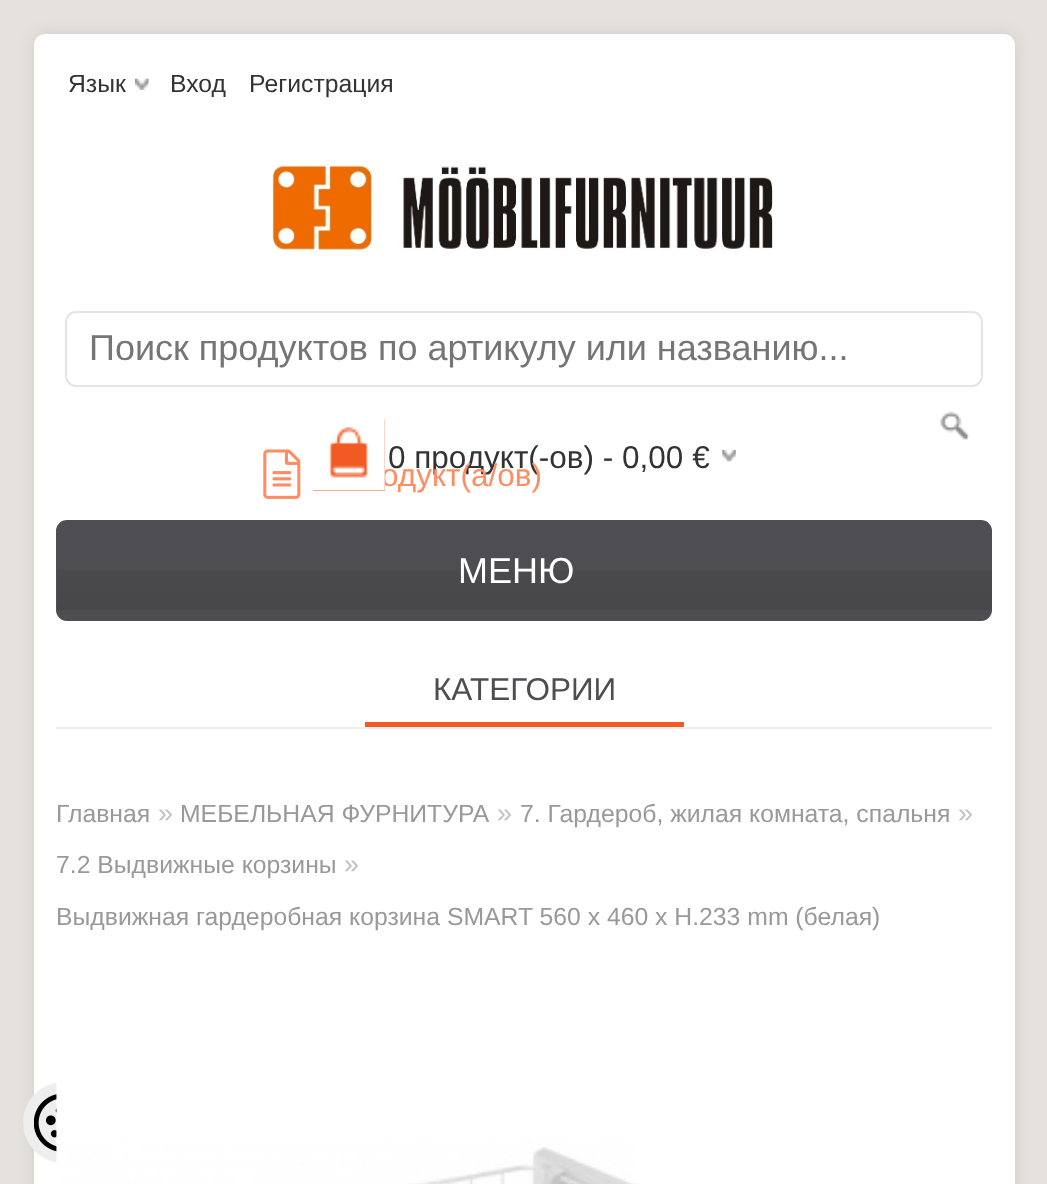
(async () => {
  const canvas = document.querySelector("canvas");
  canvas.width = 1047;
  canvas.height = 1184;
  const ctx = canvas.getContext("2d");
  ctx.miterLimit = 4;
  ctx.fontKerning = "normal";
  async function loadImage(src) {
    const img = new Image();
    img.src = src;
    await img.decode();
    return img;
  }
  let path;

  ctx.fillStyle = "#e5e1dc";
  ctx.fillRect(0, 0, 1047, 1184);
  ctx.fillStyle = "rgba(0, 0, 0, 0.08)";
  ctx.filter = "blur(9px)";
  ctx.beginPath();
  ctx.roundRect(34, 34, 981, 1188, 11);
  ctx.fill();
  ctx.filter = "none";
  ctx.fillStyle = "#ffffff";
  path = new Path2D("M45 34H1004C1010 34 1015 39 1015 45V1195H34V45C34 39 39 34 45 34Z");
  ctx.fill(path);
  ctx.drawImage(await loadImage("img/1.png"), 135, 78, 14, 12);
  ctx.drawImage(await loadImage("img/2.png"), 272, 164, 501, 89);
  ctx.beginPath();
  ctx.roundRect(66, 312, 916, 74, 10);
  ctx.strokeStyle = "#e4e4e4";
  ctx.lineWidth = 2;
  ctx.stroke();
  ctx.drawImage(await loadImage("img/3.png"), 940, 411, 30, 29);
  ctx.drawImage(await loadImage("img/5.png"), 722, 450, 14, 12);
  ctx.drawImage(await loadImage("img/6.png"), 263, 449, 38, 50);
  ctx.fillStyle = "#4e4e52";
  ctx.beginPath();
  ctx.roundRect(56, 520, 936, 101, 11);
  ctx.fill();
  ctx.drawImage(await loadImage("img/7.png"), 57, 570, 935, 40);
  ctx.fillStyle = "#eeeeee";
  ctx.fillRect(56, 727, 936, 2);
  ctx.fillStyle = "#f15a23";
  ctx.fillRect(365, 722, 319, 5);
  ctx.fillStyle = "#eeeeee";
  ctx.beginPath();
  ctx.arc(63.5, 1122.5, 40.5, 0, Math.PI * 2);
  ctx.fill();
  ctx.drawImage(await loadImage("img/9.png"), 34, 1094, 23, 58);
  ctx.drawImage(await loadImage("img/8.png"), 56, 1082, 580, 102);
  ctx.font = "24.75px Liberation Sans";
  ctx.fillStyle = "#333333";
  for (const [text, x, y] of [
    ["Язык", 68, 92],
    ["Вход", 170, 92],
    ["Регистрация", 249, 92],
  ]) {
    ctx.fillText(text, x, y);
  }
  ctx.font = "36px Liberation Sans";
  ctx.fillStyle = "#757575";
  ctx.fillText("Поиск продуктов по артикулу или названию...", 89, 360);
  ctx.font = "31.5px Liberation Sans";
  ctx.fillStyle = "#333333";
  ctx.fillText("0 продукт(-ов) - 0,00 €", 388, 468);
  ctx.fillStyle = "#ff8d63";
  ctx.fillText("одукт(а/ов)", 381, 486);
  ctx.fillStyle = "#f15a23";
  ctx.fillRect(313, 419, 72, 72);
  ctx.drawImage(await loadImage("img/4.png"), 313, 419, 72, 72);
  ctx.font = "36px Liberation Sans";
  ctx.fillStyle = "#ffffff";
  ctx.fillText("МЕНЮ", 458, 583);
  ctx.font = "31.5px Liberation Sans";
  ctx.fillStyle = "#4e4e52";
  ctx.fillText("КАТЕГОРИИ", 433, 700);
  ctx.font = "24.75px Liberation Sans";
  ctx.fillStyle = "#999999";
  ctx.fillText("Главная", 56, 822);
  ctx.font = "27px Liberation Sans";
  ctx.fillStyle = "#c2c2c2";
  ctx.fillText("»", 158, 822);
  ctx.font = "24.75px Liberation Sans";
  ctx.fillStyle = "#999999";
  ctx.fillText("МЕБЕЛЬНАЯ ФУРНИТУРА", 180, 822);
  ctx.font = "27px Liberation Sans";
  ctx.fillStyle = "#c2c2c2";
  ctx.fillText("»", 497, 822);
  ctx.font = "24.75px Liberation Sans";
  ctx.fillStyle = "#999999";
  ctx.fillText("7. Гардероб, жилая комната, спальня", 520, 822);
  ctx.font = "27px Liberation Sans";
  ctx.fillStyle = "#c2c2c2";
  ctx.fillText("»", 958, 822);
  ctx.font = "24.75px Liberation Sans";
  ctx.fillStyle = "#999999";
  ctx.fillText("7.2 Выдвижные корзины", 56, 873);
  ctx.font = "27px Liberation Sans";
  ctx.fillStyle = "#c2c2c2";
  ctx.fillText("»", 344, 873);
  ctx.font = "24.75px Liberation Sans";
  ctx.fillStyle = "#999999";
  ctx.fillText("Выдвижная гардеробная корзина SMART 560 x 460 x H.233 mm (белая)", 56, 925);
})();
